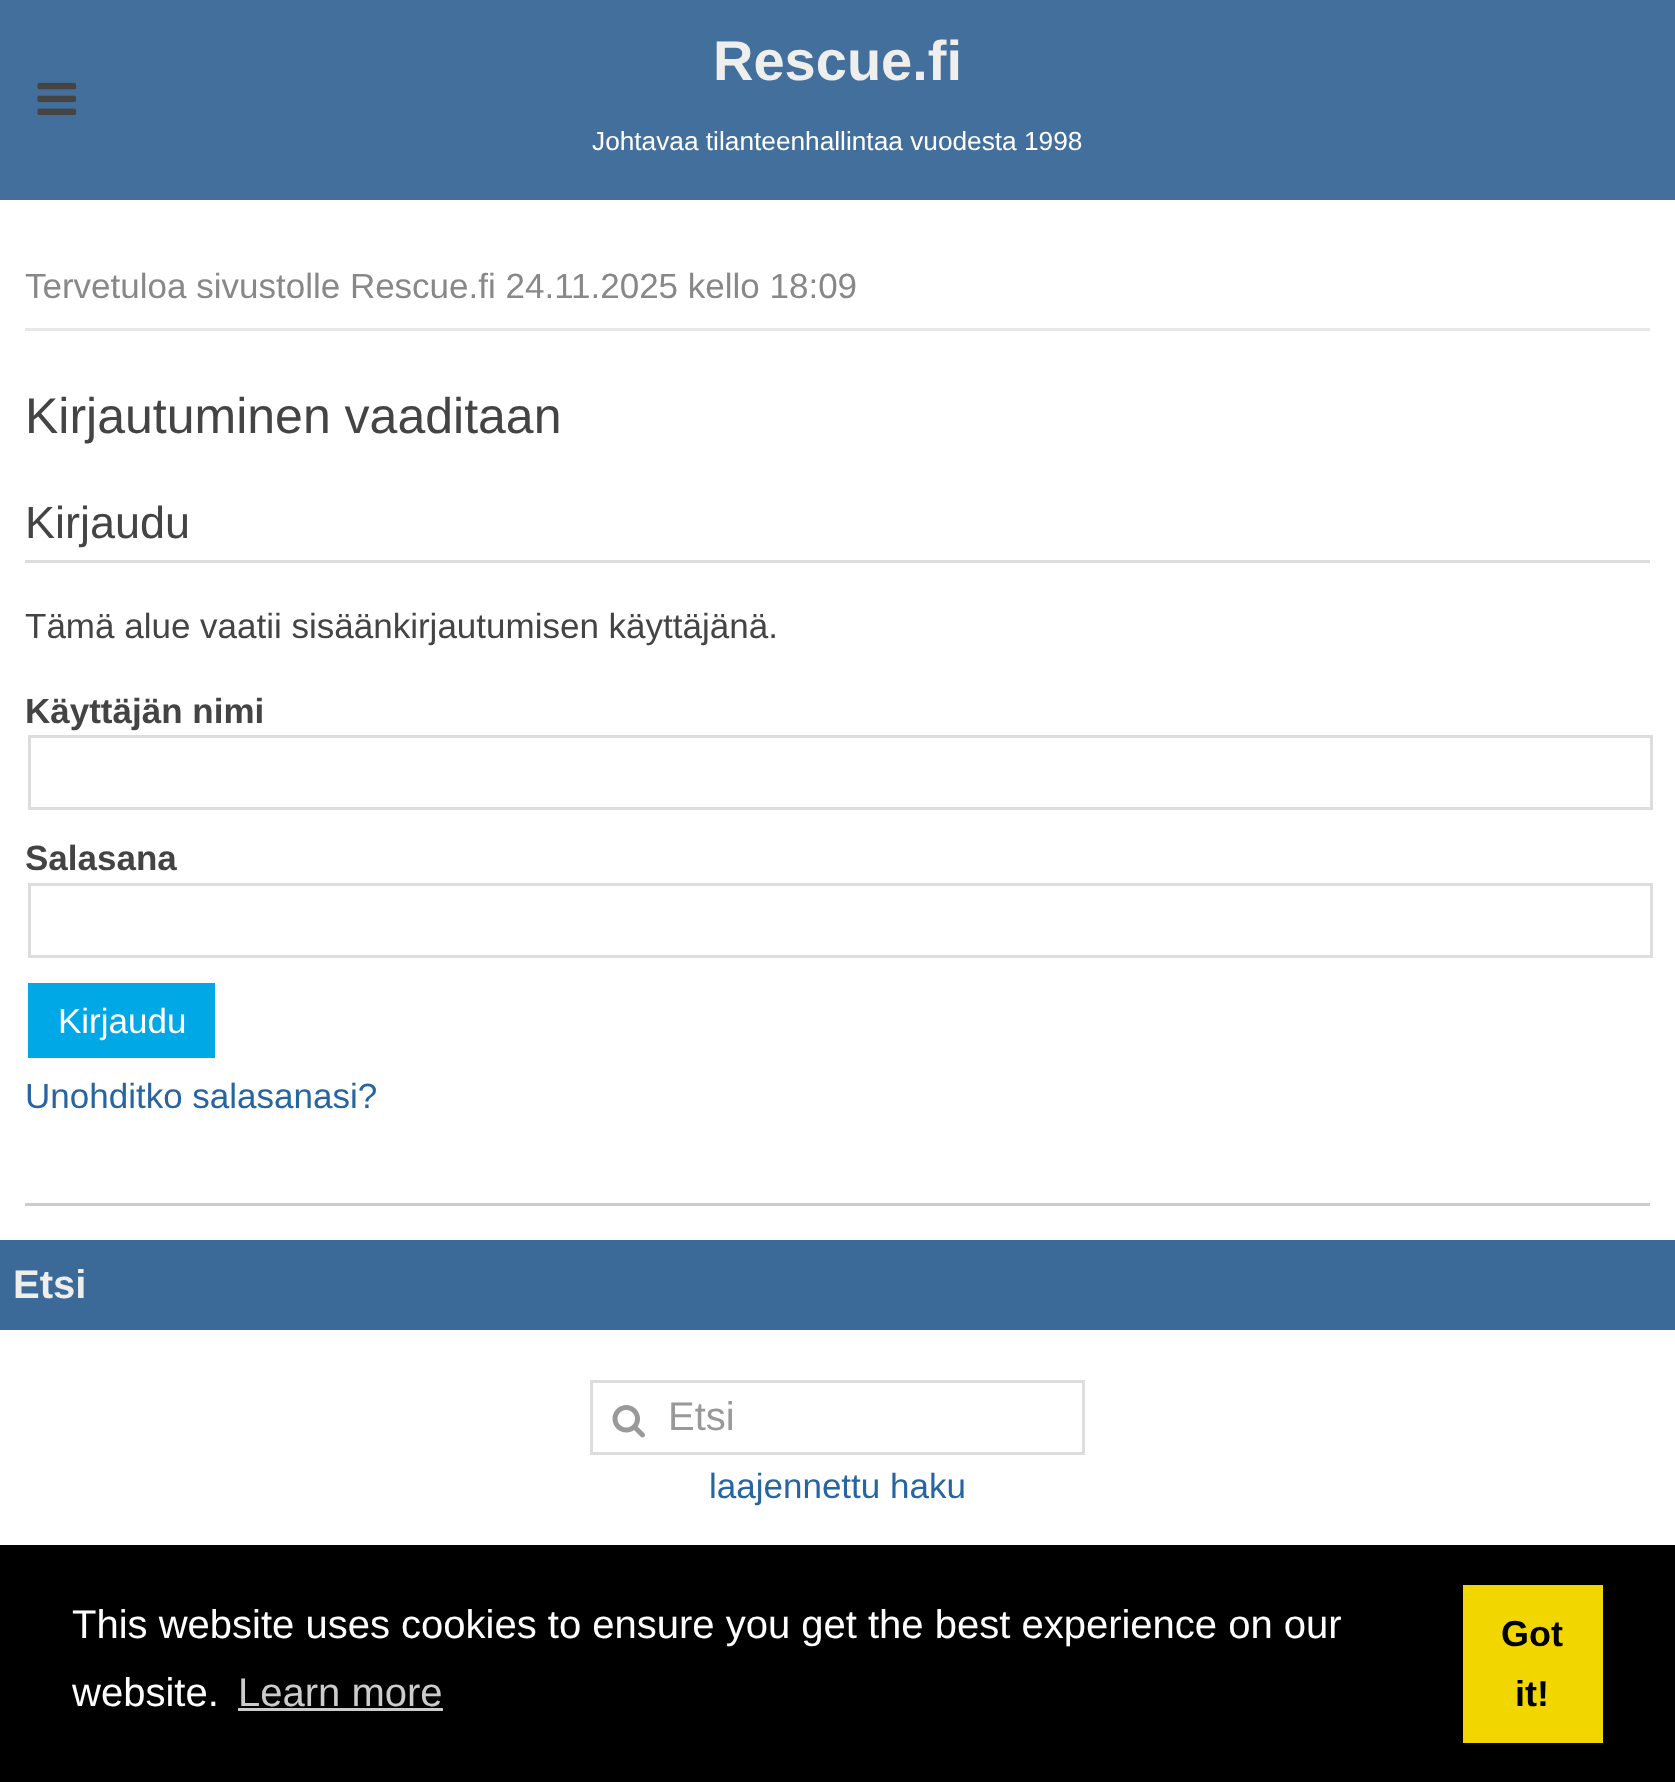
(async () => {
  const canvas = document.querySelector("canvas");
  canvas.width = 1675;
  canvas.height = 1782;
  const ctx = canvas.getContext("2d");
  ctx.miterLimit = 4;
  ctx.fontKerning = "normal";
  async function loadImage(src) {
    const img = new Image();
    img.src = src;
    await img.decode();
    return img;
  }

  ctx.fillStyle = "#ffffff";
  ctx.fillRect(0, 0, 1675, 1782);
  ctx.fillStyle = "#426f9c";
  ctx.fillRect(0, 0, 1675, 200);
  ctx.drawImage(await loadImage("img/1.png"), 37, 82, 40, 33);
  for (const [x, y, w, h, color] of [
    [25, 328, 1625, 3, "#e7e7e7"],
    [25, 1203, 1625, 3, "#cccccc"],
    [25, 560, 1625, 3, "#dddddd"],
  ]) {
    ctx.fillStyle = color;
    ctx.fillRect(x, y, w, h);
  }
  ctx.strokeStyle = "#dddddd";
  ctx.lineWidth = 3;
  ctx.strokeRect(29.5, 736.5, 1622, 72);
  ctx.strokeRect(29.5, 884.5, 1622, 72);
  ctx.fillStyle = "#00a8e6";
  ctx.fillRect(28, 983, 187, 75);
  ctx.fillStyle = "#3b6998";
  ctx.fillRect(0, 1240, 1675, 90);
  ctx.strokeRect(591.5, 1381.5, 492, 72);
  ctx.drawImage(await loadImage("img/2.png"), 612, 1405, 33, 33);
  for (const [x, y, w, h, color] of [
    [0, 1545, 1675, 237, "#000000"],
    [238, 1708, 205, 3, "#cccccc"],
    [1463, 1585, 140, 158, "#f1d600"],
  ]) {
    ctx.fillStyle = color;
    ctx.fillRect(x, y, w, h);
  }
  ctx.font = "bold 56px Liberation Sans";
  ctx.fillStyle = "#eeeeec";
  ctx.fillText("Rescue.fi", 713, 80);
  ctx.font = "26.25px Liberation Sans";
  ctx.fillStyle = "#ffffff";
  ctx.fillText("Johtavaa tilanteenhallintaa vuodesta 1998", 592, 150);
  ctx.font = "35px Liberation Sans";
  ctx.fillStyle = "#888888";
  ctx.fillText("Tervetuloa sivustolle Rescue.fi 24.11.2025 kello 18:09", 25, 298);
  ctx.font = "50px Liberation Sans";
  ctx.fillStyle = "#444444";
  ctx.fillText("Kirjautuminen vaaditaan", 25, 433);
  ctx.font = "45px Liberation Sans";
  ctx.fillText("Kirjaudu", 25, 538);
  ctx.font = "35px Liberation Sans";
  ctx.fillText("Tämä alue vaatii sisäänkirjautumisen käyttäjänä.", 25, 638);
  ctx.font = "bold 35px Liberation Sans";
  ctx.fillText("Käyttäjän nimi", 25, 723);
  ctx.fillText("Salasana", 25, 870);
  ctx.font = "35px Liberation Sans";
  ctx.fillStyle = "#ffffff";
  ctx.fillText("Kirjaudu", 58, 1033);
  ctx.fillStyle = "#2664a2";
  ctx.fillText("Unohditko salasanasi?", 25, 1108);
  ctx.font = "bold 40px Liberation Sans";
  ctx.fillStyle = "#eeeeec";
  ctx.fillText("Etsi", 13, 1298);
  ctx.font = "40px Liberation Sans";
  ctx.fillStyle = "#999999";
  ctx.fillText("Etsi", 668, 1430);
  ctx.font = "35px Liberation Sans";
  ctx.fillStyle = "#2664a2";
  ctx.fillText("laajennettu haku", 709, 1498);
  ctx.font = "40px Liberation Sans";
  ctx.fillStyle = "#ffffff";
  ctx.fillText("This website uses cookies to ensure you get the best experience on our", 72, 1638);
  ctx.fillText("website.", 72, 1706);
  ctx.fillStyle = "#cccccc";
  ctx.fillText("Learn more", 238, 1706);
  ctx.font = "bold 36px Liberation Sans";
  ctx.fillStyle = "#000000";
  ctx.fillText("Got", 1501, 1646);
  ctx.fillText("it!", 1515, 1706);
})();
